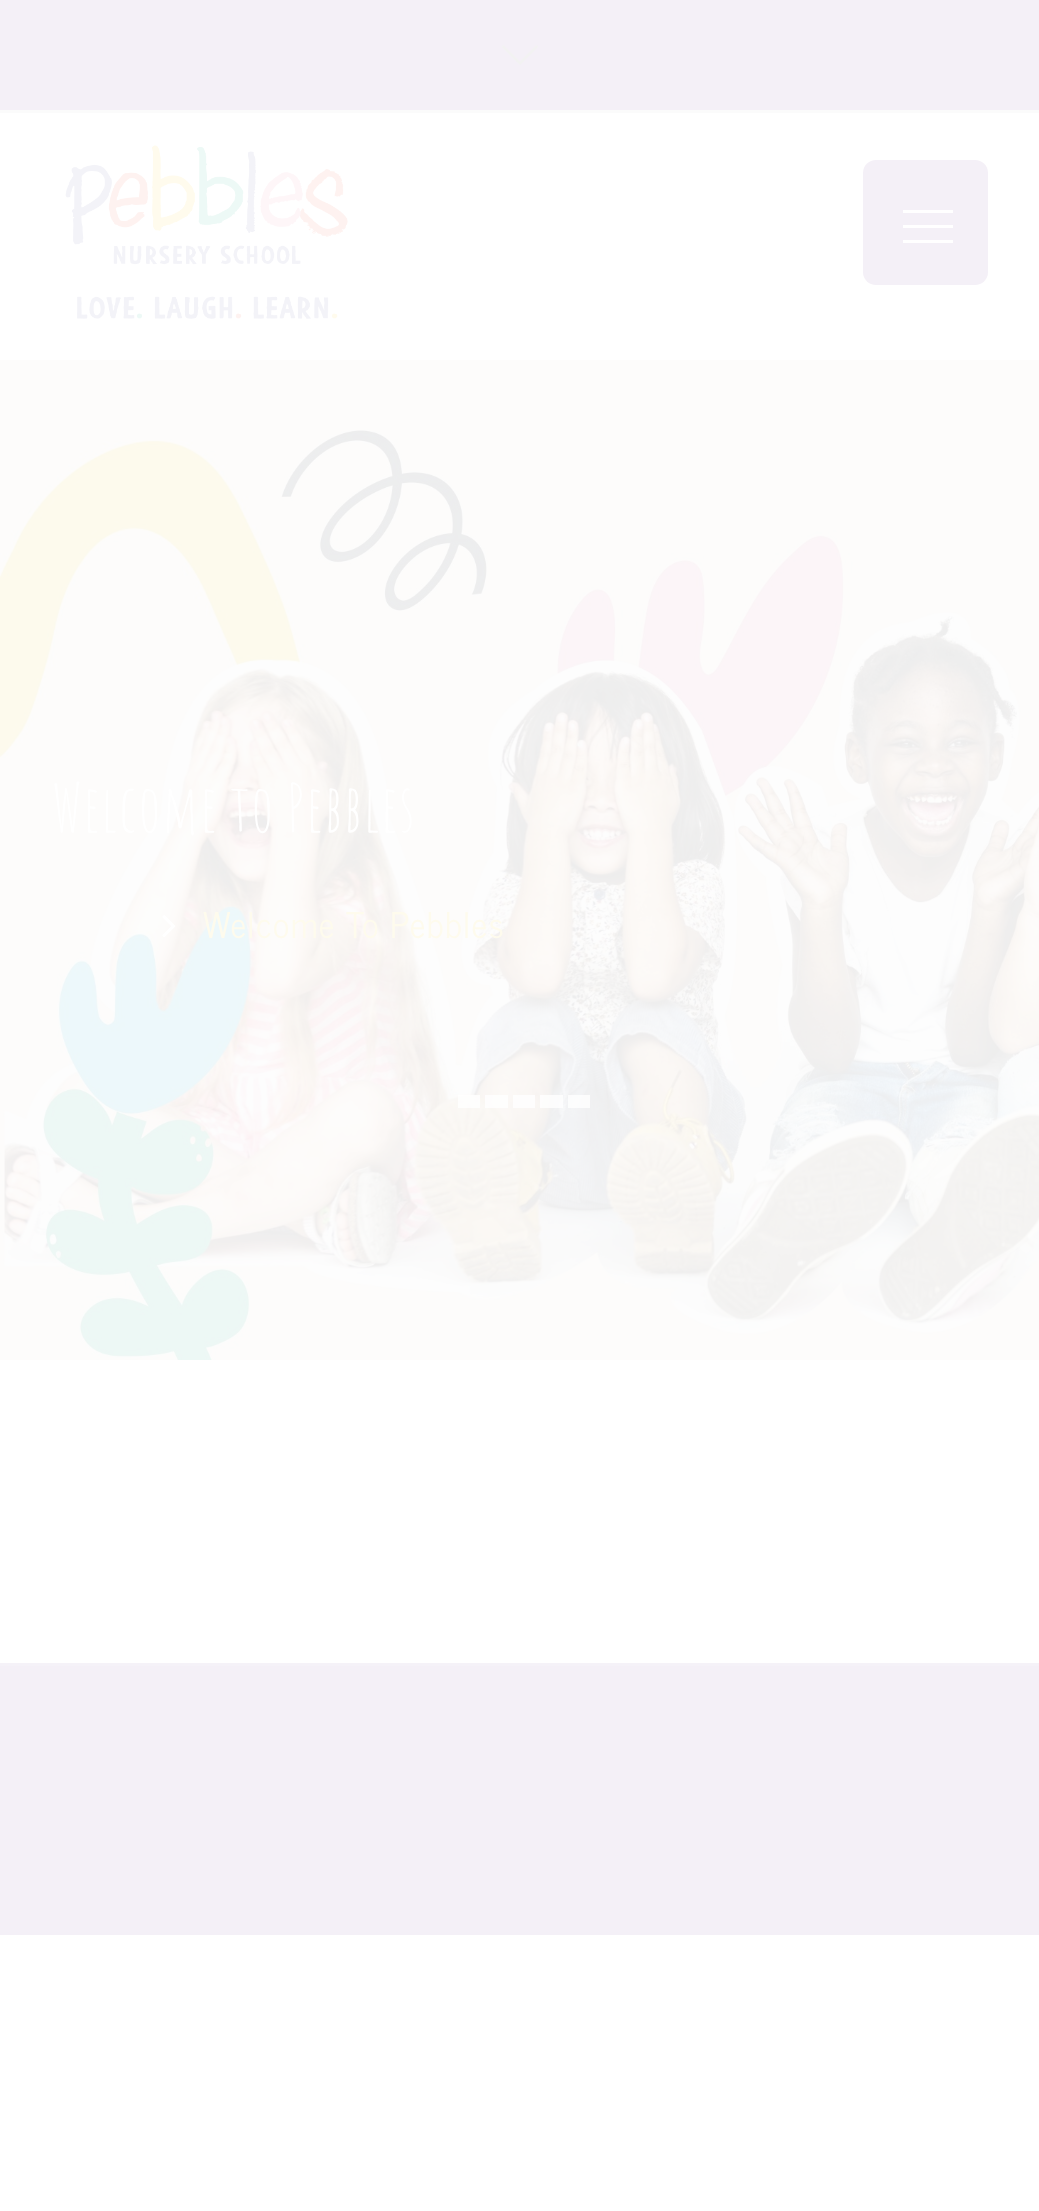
(async () => {
  const canvas = document.querySelector("canvas");
  canvas.width = 1039;
  canvas.height = 2211;
  const ctx = canvas.getContext("2d");
  ctx.miterLimit = 4;
  ctx.fontKerning = "normal";
  async function loadImage(src) {
    const img = new Image();
    img.src = src;
    await img.decode();
    return img;
  }

  ctx.fillStyle = "#ffffff";
  ctx.fillRect(0, 0, 1039, 2211);
  ctx.fillStyle = "#f4f0f7";
  ctx.fillRect(0, 0, 1039, 110);
  ctx.drawImage(await loadImage("img/1.png"), 502, 45, 36, 20);
  ctx.fillStyle = "#fbfbfb";
  ctx.fillRect(0, 110, 1039, 3);
  ctx.drawImage(await loadImage("img/2.png"), 65, 145, 283, 174);
  ctx.fillStyle = "#f4f0f7";
  ctx.beginPath();
  ctx.roundRect(863, 160, 125, 125, 13);
  ctx.fill();
  for (const [x, y, w, h, color] of [
    [903, 210, 50, 3, "#ffffff"],
    [903, 225, 50, 3, "#ffffff"],
    [903, 240, 50, 3, "#ffffff"],
  ]) {
    ctx.fillStyle = color;
    ctx.fillRect(x, y, w, h);
  }
  ctx.drawImage(await loadImage("img/3.png"), 0, 360, 1039, 1000);
  ctx.drawImage(await loadImage("img/4.png"), 162, 915, 14, 23);
  for (const [x, y, w, h, color] of [
    [458, 1095, 22, 13, "rgba(255, 255, 255, 0.78)"],
    [485, 1095, 23, 13, "rgba(255, 255, 255, 0.78)"],
    [513, 1095, 22, 13, "rgba(255, 255, 255, 0.78)"],
    [540, 1095, 23, 13, "rgba(255, 255, 255, 0.78)"],
    [568, 1095, 22, 13, "rgba(255, 255, 255, 0.78)"],
    [0, 1666, 1039, 269, "#f4f0f7"],
    [0, 1663, 1039, 3, "#f5f2f8"],
  ]) {
    ctx.fillStyle = color;
    ctx.fillRect(x, y, w, h);
  }
  ctx.letterSpacing = "1.25px";
  ctx.font = "65px Amatic SC";
  ctx.fillStyle = "#ffffff";
  ctx.fillText("Welcome to Pebbles", 52, 832);
  ctx.font = "35px News Cycle";
  ctx.fillStyle = "#fefbed";
  ctx.fillText("Welcome To Pebbles", 203, 938);
})();
